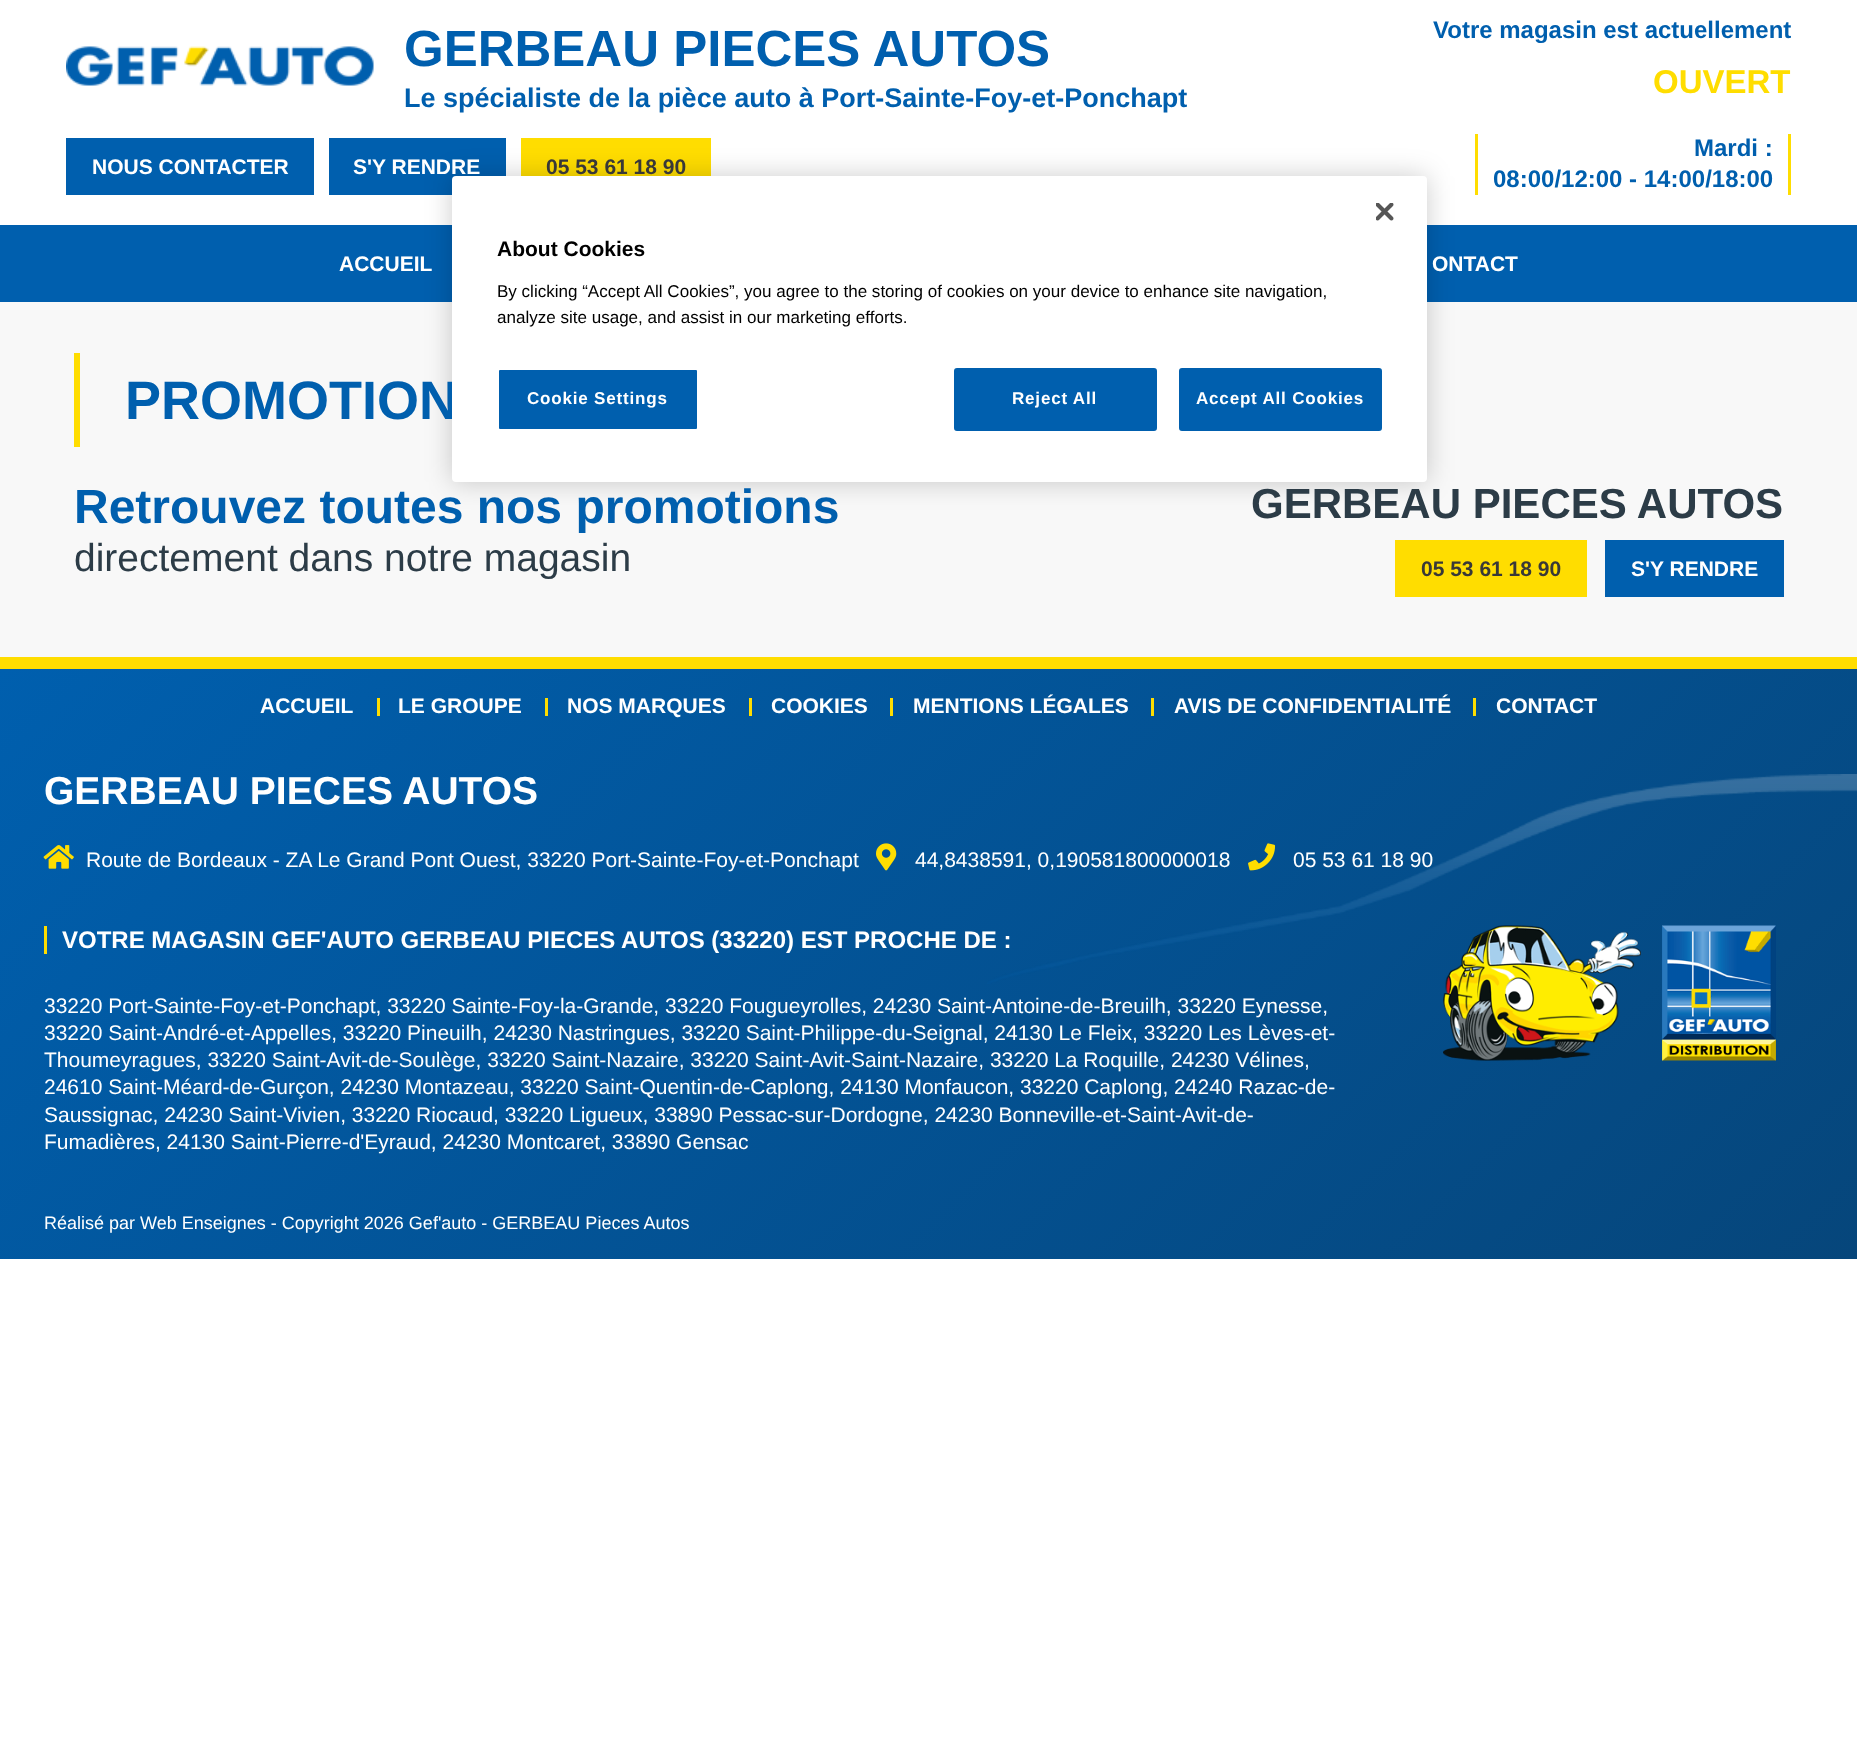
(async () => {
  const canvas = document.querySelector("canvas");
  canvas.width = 1857;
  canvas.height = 1749;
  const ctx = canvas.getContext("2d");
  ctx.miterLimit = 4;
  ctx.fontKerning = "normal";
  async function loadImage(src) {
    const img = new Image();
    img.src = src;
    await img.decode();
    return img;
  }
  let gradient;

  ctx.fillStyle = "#ffffff";
  ctx.fillRect(0, 0, 1857, 1749);
  ctx.drawImage(await loadImage("img/1.png"), 66, 46, 308, 40);
  for (const [x, y, w, h, color] of [
    [66, 138, 248, 57, "#005fae"],
    [329, 138, 177, 57, "#005fae"],
    [521, 138, 190, 38, "#ffdd00"],
    [1788, 134, 3, 61, "#ffdd00"],
    [1475, 134, 3, 61, "#ffdd00"],
    [0, 225, 1857, 77, "#005fae"],
    [0, 302, 1857, 355, "#f8f8f8"],
    [74, 353, 6, 94, "#ffdd00"],
    [1395, 540, 192, 57, "#ffdd00"],
    [1605, 540, 179, 57, "#005fae"],
  ]) {
    ctx.fillStyle = color;
    ctx.fillRect(x, y, w, h);
  }
  gradient = ctx.createLinearGradient(333, 347, 1524, 1580);
  gradient.addColorStop(0, "#005fae");
  gradient.addColorStop(1, "#06467b");
  ctx.fillStyle = gradient;
  ctx.fillRect(0, 669, 1857, 590);
  for (const [x, y, w, h, color] of [
    [0, 657, 1857, 12, "#ffdd00"],
    [377, 698, 3, 18, "#ffdd00"],
    [545, 698, 3, 18, "#ffdd00"],
    [749, 698, 3, 18, "#ffdd00"],
    [890, 698, 3, 18, "#ffdd00"],
    [1151, 698, 3, 18, "#ffdd00"],
    [1473, 698, 3, 18, "#ffdd00"],
  ]) {
    ctx.fillStyle = color;
    ctx.fillRect(x, y, w, h);
  }
  ctx.drawImage(await loadImage("img/2.png"), 43, 845, 31, 24);
  ctx.drawImage(await loadImage("img/3.png"), 876, 843, 21, 28);
  ctx.drawImage(await loadImage("img/7.png"), 987, 774, 870, 210);
  ctx.drawImage(await loadImage("img/4.png"), 1248, 843, 28, 28);
  ctx.fillRect(44, 926, 3, 28);
  ctx.drawImage(await loadImage("img/5.png"), 1443, 925, 198, 136);
  ctx.drawImage(await loadImage("img/6.png"), 1662, 925, 114, 136);
  ctx.fillStyle = "rgba(0, 0, 0, 0.2)";
  ctx.filter = "blur(13.5px)";
  ctx.beginPath();
  ctx.roundRect(452, 176, 975, 306, 4);
  ctx.fill();
  ctx.filter = "none";
  ctx.font = "bold 51px Liberation Sans";
  ctx.fillStyle = "#005fae";
  ctx.fillText("GERBEAU PIECES AUTOS", 404, 66);
  ctx.font = "bold 27px Liberation Sans";
  ctx.fillText("Le spécialiste de la pièce auto à Port-Sainte-Foy-et-Ponchapt", 404, 107);
  ctx.font = "bold 21px Liberation Sans";
  ctx.fillStyle = "#ffffff";
  ctx.fillText("NOUS CONTACTER", 92, 174);
  ctx.fillText("S'Y RENDRE", 353, 174);
  ctx.fillStyle = "#383838";
  ctx.fillText("05 53 61 18 90", 546, 174);
  ctx.font = "bold 24px Liberation Sans";
  ctx.fillStyle = "#005fae";
  ctx.fillText("Votre magasin est actuellement", 1433, 38);
  ctx.font = "bold 33px Liberation Sans";
  ctx.fillStyle = "#ffdd00";
  ctx.fillText("OUVERT", 1653, 93);
  ctx.font = "bold 24px Liberation Sans";
  ctx.fillStyle = "#005fae";
  ctx.fillText("Mardi :", 1694, 156);
  ctx.fillText("08:00/12:00 - 14:00/18:00", 1493, 187);
  ctx.font = "bold 21px Liberation Sans";
  ctx.fillStyle = "#ffffff";
  ctx.fillText("ACCUEIL", 339, 271);
  ctx.fillText("ONTACT", 1432, 271);
  ctx.font = "bold 54px Liberation Sans";
  ctx.fillStyle = "#005fae";
  ctx.fillText("PROMOTION", 125, 419);
  ctx.font = "bold 48px Liberation Sans";
  ctx.fillText("Retrouvez toutes nos promotions", 74, 523);
  ctx.font = "39px Liberation Sans";
  ctx.fillStyle = "#2c3c47";
  ctx.fillText("directement dans notre magasin", 74, 571);
  ctx.font = "bold 42px Liberation Sans";
  ctx.fillText("GERBEAU PIECES AUTOS", 1251, 518);
  ctx.font = "bold 21px Liberation Sans";
  ctx.fillStyle = "#383838";
  ctx.fillText("05 53 61 18 90", 1421, 576);
  ctx.fillStyle = "#ffffff";
  for (const [text, x, y] of [
    ["S'Y RENDRE", 1631, 576],
    ["ACCUEIL", 260, 713],
    ["LE GROUPE", 398, 713],
    ["NOS MARQUES", 567, 713],
    ["COOKIES", 771, 713],
    ["MENTIONS LÉGALES", 913, 713],
    ["AVIS DE CONFIDENTIALITÉ", 1174, 713],
    ["CONTACT", 1496, 713],
  ]) {
    ctx.fillText(text, x, y);
  }
  ctx.font = "bold 39px Liberation Sans";
  ctx.fillText("GERBEAU PIECES AUTOS", 44, 804);
  ctx.font = "21px Liberation Sans";
  for (const [text, x, y] of [
    ["Route de Bordeaux - ZA Le Grand Pont Ouest, 33220 Port-Sainte-Foy-et-Ponchapt", 86, 867],
    ["44,8438591, 0,190581800000018", 915, 867],
    ["05 53 61 18 90", 1293, 867],
  ]) {
    ctx.fillText(text, x, y);
  }
  ctx.font = "bold 24px Liberation Sans";
  ctx.fillText("VOTRE MAGASIN GEF'AUTO GERBEAU PIECES AUTOS (33220) EST PROCHE DE :", 62, 948);
  ctx.font = "21px Liberation Sans";
  for (const [text, x, y] of [
    ["33220 Port-Sainte-Foy-et-Ponchapt, 33220 Sainte-Foy-la-Grande, 33220 Fougueyrolles, 24230 Saint-Antoine-de-Breuilh, 33220 Eynesse,", 44, 1013],
    ["33220 Saint-André-et-Appelles, 33220 Pineuilh, 24230 Nastringues, 33220 Saint-Philippe-du-Seignal, 24130 Le Fleix, 33220 Les Lèves-et-", 44, 1040],
    ["Thoumeyragues, 33220 Saint-Avit-de-Soulège, 33220 Saint-Nazaire, 33220 Saint-Avit-Saint-Nazaire, 33220 La Roquille, 24230 Vélines,", 44, 1067],
    ["24610 Saint-Méard-de-Gurçon, 24230 Montazeau, 33220 Saint-Quentin-de-Caplong, 24130 Monfaucon, 33220 Caplong, 24240 Razac-de-", 44, 1094],
    ["Saussignac, 24230 Saint-Vivien, 33220 Riocaud, 33220 Ligueux, 33890 Pessac-sur-Dordogne, 24230 Bonneville-et-Saint-Avit-de-", 44, 1122],
    ["Fumadières, 24130 Saint-Pierre-d'Eyraud, 24230 Montcaret, 33890 Gensac", 44, 1149],
  ]) {
    ctx.fillText(text, x, y);
  }
  ctx.font = "18px Liberation Sans";
  ctx.fillText("Réalisé par Web Enseignes - Copyright 2026 Gef'auto - GERBEAU Pieces Autos", 44, 1229);
  ctx.beginPath();
  ctx.roundRect(452, 176, 975, 306, 4);
  ctx.fill();
  ctx.drawImage(await loadImage("img/8.png"), 1376, 203, 18, 18);
  ctx.font = "bold 21px Liberation Sans";
  ctx.fillStyle = "#000000";
  ctx.fillText("About Cookies", 497, 256);
  ctx.font = "17.05px Liberation Sans";
  ctx.fillText("By clicking “Accept All Cookies”, you agree to the storing of cookies on your device to enhance site navigation,", 497, 297);
  ctx.fillText("analyze site usage, and assist in our marketing efforts.", 497, 323);
  ctx.fillStyle = "#005fae";
  ctx.beginPath();
  ctx.roundRect(498, 369, 200, 61, 2);
  ctx.fill();
  ctx.strokeStyle = "#ffffff";
  ctx.lineWidth = 2;
  ctx.stroke();
  ctx.letterSpacing = "0.8px";
  ctx.font = "bold 17.05px Liberation Sans";
  ctx.fillStyle = "#ffffff";
  ctx.fillText("Cookie Settings", 527, 404);
  ctx.fillStyle = "#005fae";
  ctx.beginPath();
  ctx.roundRect(955, 369, 201, 61, 2);
  ctx.fill();
  ctx.strokeStyle = "#005fae";
  ctx.stroke();
  ctx.fillStyle = "#ffffff";
  ctx.fillText("Reject All", 1012, 404);
  ctx.fillStyle = "#005fae";
  ctx.beginPath();
  ctx.roundRect(1180, 369, 201, 61, 2);
  ctx.fill();
  ctx.stroke();
  ctx.fillStyle = "#ffffff";
  ctx.fillText("Accept All Cookies", 1196, 404);
})();
